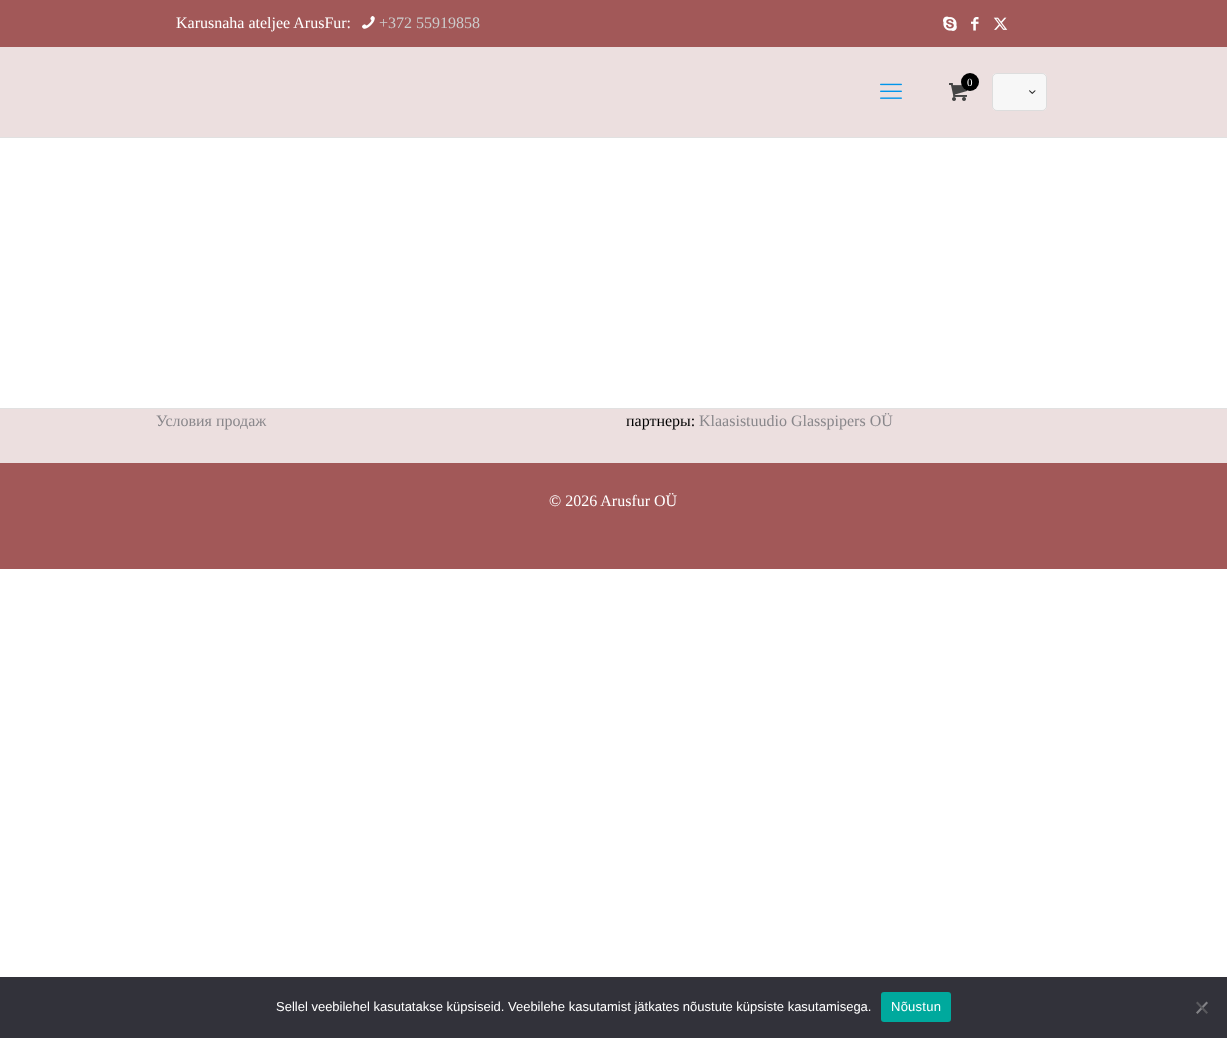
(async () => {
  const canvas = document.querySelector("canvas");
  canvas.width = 1227;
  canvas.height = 1038;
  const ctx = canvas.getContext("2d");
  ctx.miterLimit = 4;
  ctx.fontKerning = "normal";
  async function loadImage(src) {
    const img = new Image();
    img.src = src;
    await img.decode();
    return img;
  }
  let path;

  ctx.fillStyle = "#ffffff";
  ctx.fillRect(0, 0, 1227, 1038);
  ctx.fillStyle = "#a25858";
  ctx.fillRect(0, 0, 1227, 47);
  ctx.drawImage(await loadImage("img/1.png"), 362, 16, 13, 13);
  ctx.drawImage(await loadImage("img/2.png"), 943, 16, 14, 15);
  ctx.drawImage(await loadImage("img/3.png"), 971, 17, 8, 14);
  ctx.drawImage(await loadImage("img/4.png"), 993, 17, 15, 13);
  ctx.fillStyle = "#ecdfdf";
  ctx.fillRect(0, 47, 1227, 90);
  ctx.fillStyle = "#e1e1e1";
  ctx.fillRect(0, 137, 1227, 1);
  ctx.drawImage(await loadImage("img/5.png"), 880, 83, 22, 16);
  ctx.drawImage(await loadImage("img/6.png"), 949, 83, 18, 18);
  ctx.fillStyle = "#000000";
  ctx.beginPath();
  ctx.arc(970, 82, 9, 0, Math.PI * 2);
  ctx.fill();
  ctx.fillStyle = "#f7f7f7";
  ctx.beginPath();
  ctx.roundRect(992, 73, 55, 38, 5);
  ctx.fill();
  ctx.beginPath();
  ctx.roundRect(992.5, 73.5, 54, 37, 4.5);
  ctx.strokeStyle = "rgba(0, 0, 0, 0.1)";
  ctx.stroke();
  ctx.drawImage(await loadImage("img/7.png"), 1029, 90, 7, 4);
  for (const [x, y, w, h, color] of [
    [0, 408, 1227, 1, "#e1e1e1"],
    [0, 409, 1227, 54, "#ecdfdf"],
    [0, 463, 1227, 106, "#a25858"],
    [0, 977, 1227, 61, "#32323a"],
  ]) {
    ctx.fillStyle = color;
    ctx.fillRect(x, y, w, h);
  }
  ctx.fillStyle = "#00a99d";
  ctx.beginPath();
  ctx.roundRect(881, 992, 70, 30, 3);
  ctx.fill();
  ctx.fillStyle = "#838387";
  path = new Path2D("M1206.5 1001.5L1208 1003L1197.5 1014L1196 1012.5Z");
  ctx.fill(path);
  ctx.fillStyle = "#59595d";
  path = new Path2D("M1196 1003L1197.5 1001.5L1208 1012.5L1206.5 1014Z");
  ctx.fill(path);
  ctx.font = "16px Liberation Serif";
  ctx.fillStyle = "#ffffff";
  ctx.fillText("Karusnaha ateljee ArusFur:", 176, 28);
  ctx.fillStyle = "#cccccc";
  ctx.fillText("+372 55919858", 379, 28);
  ctx.font = "11px Liberation Serif";
  ctx.fillStyle = "#ffffff";
  ctx.fillText("0", 967, 86);
  ctx.font = "16px Liberation Serif";
  ctx.fillStyle = "#89878b";
  ctx.fillText("Условия продаж", 156, 426);
  ctx.fillStyle = "#000000";
  ctx.fillText("партнеры:", 626, 426);
  ctx.fillStyle = "#89878b";
  ctx.fillText("Klaasistuudio Glasspipers OÜ", 699, 426);
  ctx.fillStyle = "#ffffff";
  ctx.fillText("© 2026 Arusfur OÜ", 549, 506);
  ctx.font = "13px Liberation Sans";
  ctx.fillText("Sellel veebilehel kasutatakse küpsiseid. Veebilehe kasutamist jätkates nõustute küpsiste kasutamisega.", 276, 1011);
  ctx.letterSpacing = "0.25px";
  ctx.fillText("Nõustun", 891, 1011);
})();
